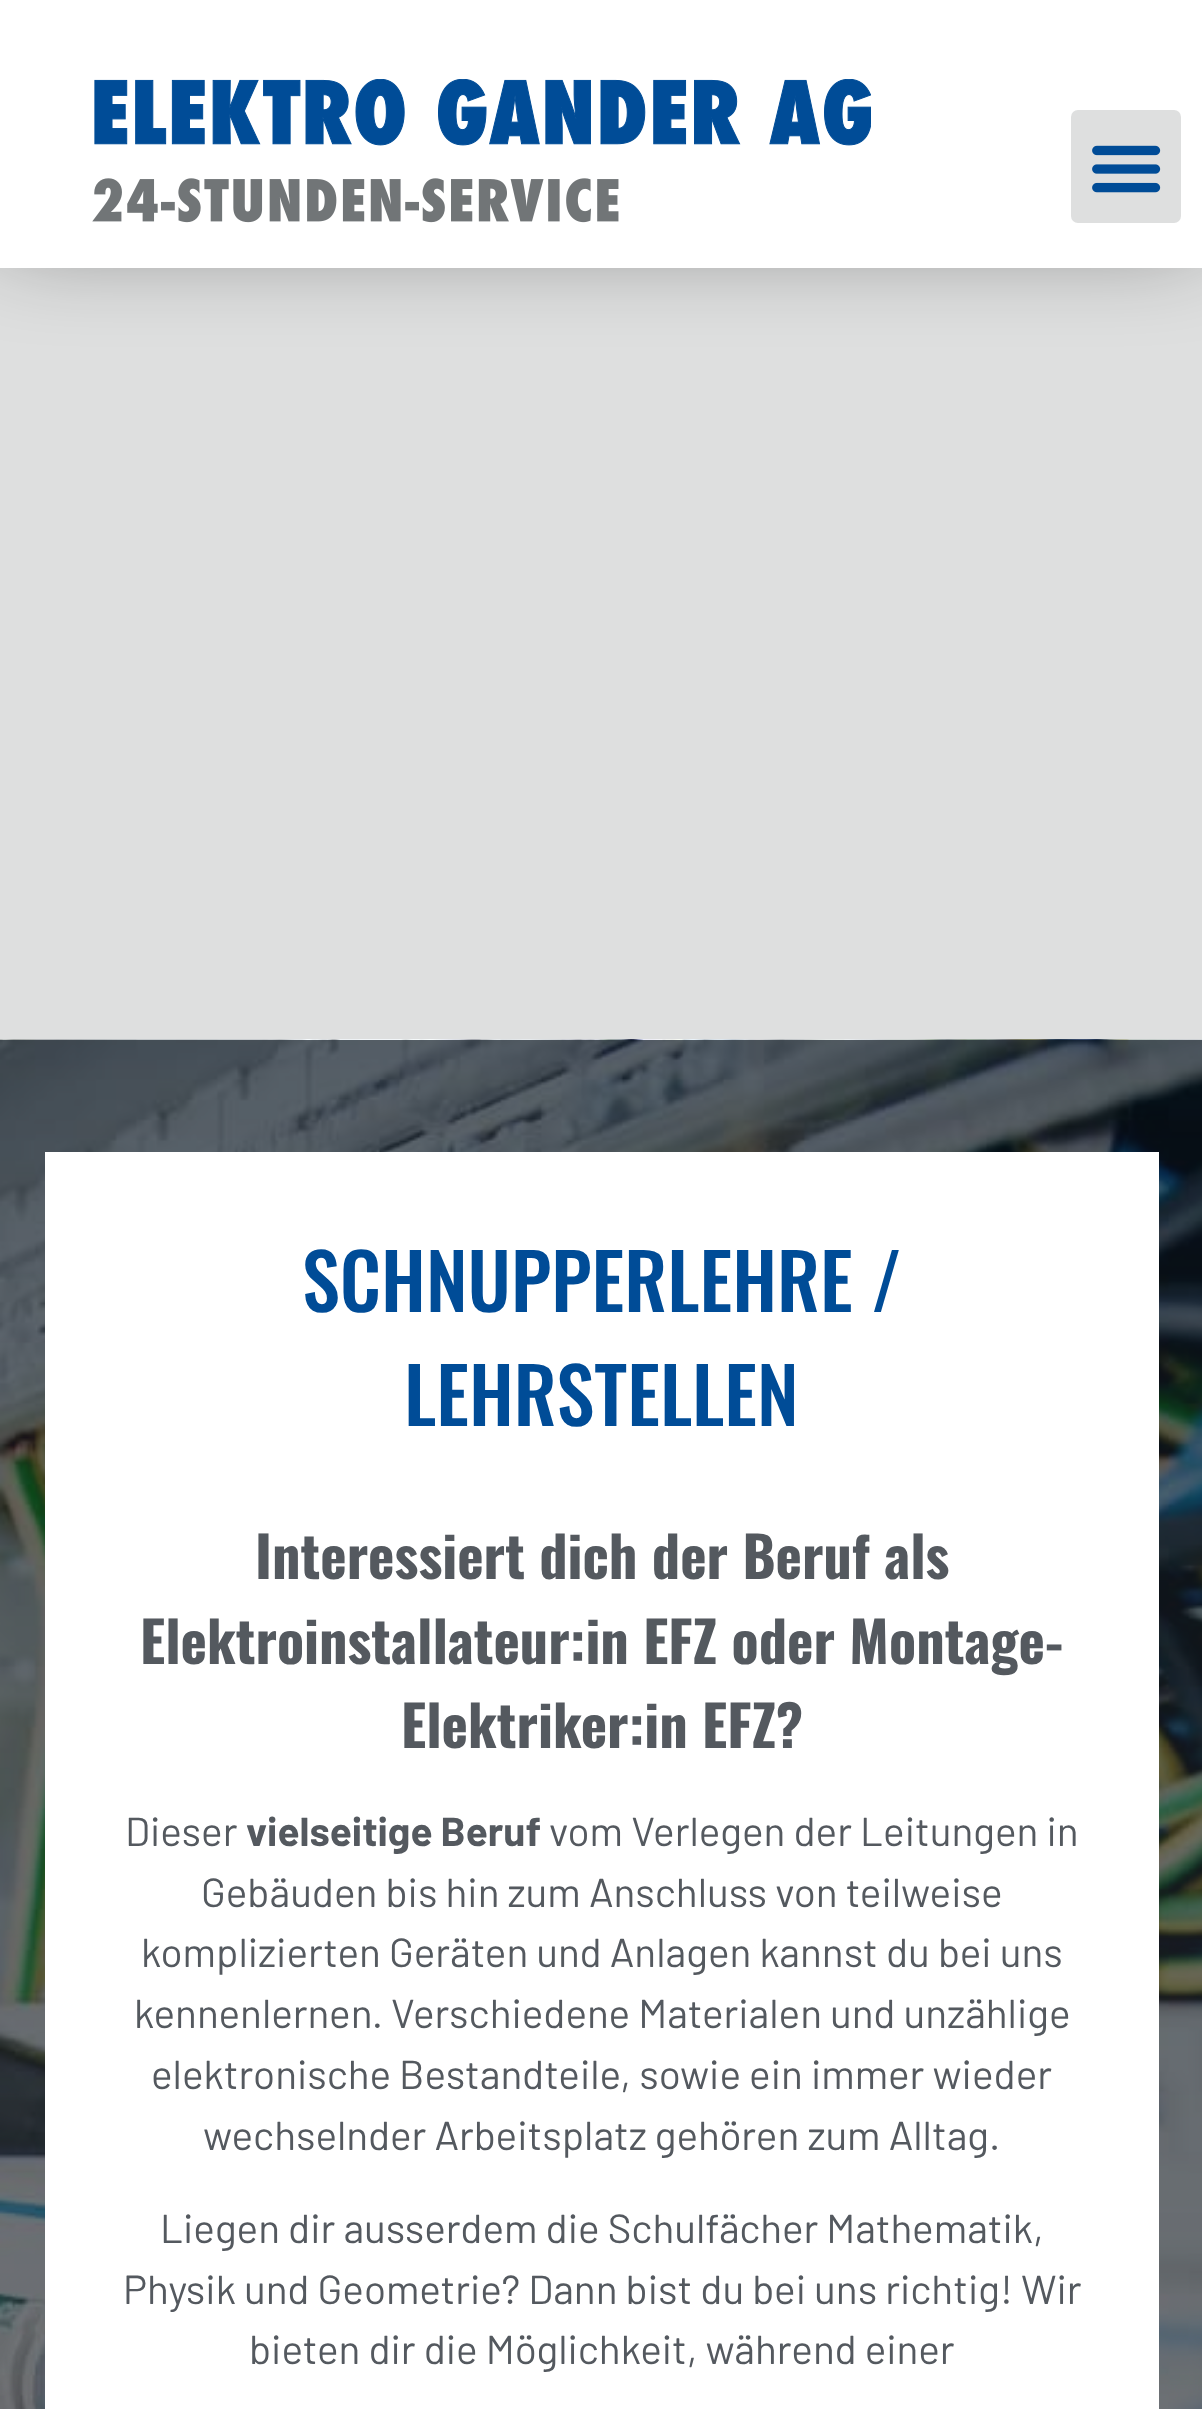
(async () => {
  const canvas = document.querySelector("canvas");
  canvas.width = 1202;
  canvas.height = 2409;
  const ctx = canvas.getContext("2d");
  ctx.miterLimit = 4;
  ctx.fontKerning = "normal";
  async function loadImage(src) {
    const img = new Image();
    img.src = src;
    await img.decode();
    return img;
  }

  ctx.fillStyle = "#dedfdf";
  ctx.fillRect(0, 0, 1202, 2409);
  ctx.fillStyle = "rgba(0, 0, 0, 0.5)";
  ctx.filter = "blur(49.5px)";
  ctx.beginPath();
  ctx.rect(0, -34, 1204, 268);
  ctx.fill();
  ctx.filter = "none";
  ctx.fillStyle = "#ffffff";
  ctx.fillRect(0, 0, 1202, 268);
  ctx.drawImage(await loadImage("img/1.png"), 92, 79, 779, 144);
  ctx.fillStyle = "#dedfdf";
  ctx.beginPath();
  ctx.roundRect(1071, 110, 110, 113, 7);
  ctx.fill();
  ctx.drawImage(await loadImage("img/2.png"), 1092, 145, 69, 48);
  ctx.drawImage(await loadImage("img/3.png"), 0, 1039, 1202, 1370);
  ctx.fillStyle = "#ffffff";
  ctx.fillRect(45, 1152, 1114, 1257);
  ctx.font = "500 76.5px Oswald";
  ctx.fillStyle = "#004c97";
  ctx.fillText("SCHNUPPERLEHRE /", 302, 1312);
  ctx.fillText("LEHRSTELLEN", 404, 1426);
  ctx.font = "bold 56.25px Oswald";
  ctx.fillStyle = "#54595f";
  for (const [text, x, y] of [
    ["Interessiert dich der Beruf als", 255, 1579],
    ["Elektroinstallateur:in EFZ oder Montage-", 140, 1664],
    ["Elektriker:in EFZ?", 401, 1748],
  ]) {
    ctx.fillText(text, x, y);
  }
  ctx.font = "40.5px Barlow";
  ctx.fillText("Dieser", 125, 1846);
  ctx.font = "bold 40.5px Barlow";
  ctx.fillText("vielseitige Beruf", 246, 1846);
  ctx.font = "40.5px Barlow";
  for (const [text, x, y] of [
    ["vom Verlegen der Leitungen in", 549, 1846],
    ["Gebäuden bis hin zum Anschluss von teilweise", 201, 1907],
    ["komplizierten Geräten und Anlagen kannst du bei uns", 141, 1967],
    ["kennenlernen. Verschiedene Materialen und unzählige", 134, 2028],
    ["elektronische Bestandteile, sowie ein immer wieder", 151, 2089],
    ["wechselnder Arbeitsplatz gehören zum Alltag.", 203, 2150],
    ["Liegen dir ausserdem die Schulfächer Mathematik,", 160, 2243],
    ["Physik und Geometrie? Dann bist du bei uns richtig! Wir", 123, 2304],
    ["bieten dir die Möglichkeit, während einer", 249, 2364],
  ]) {
    ctx.fillText(text, x, y);
  }
})();
